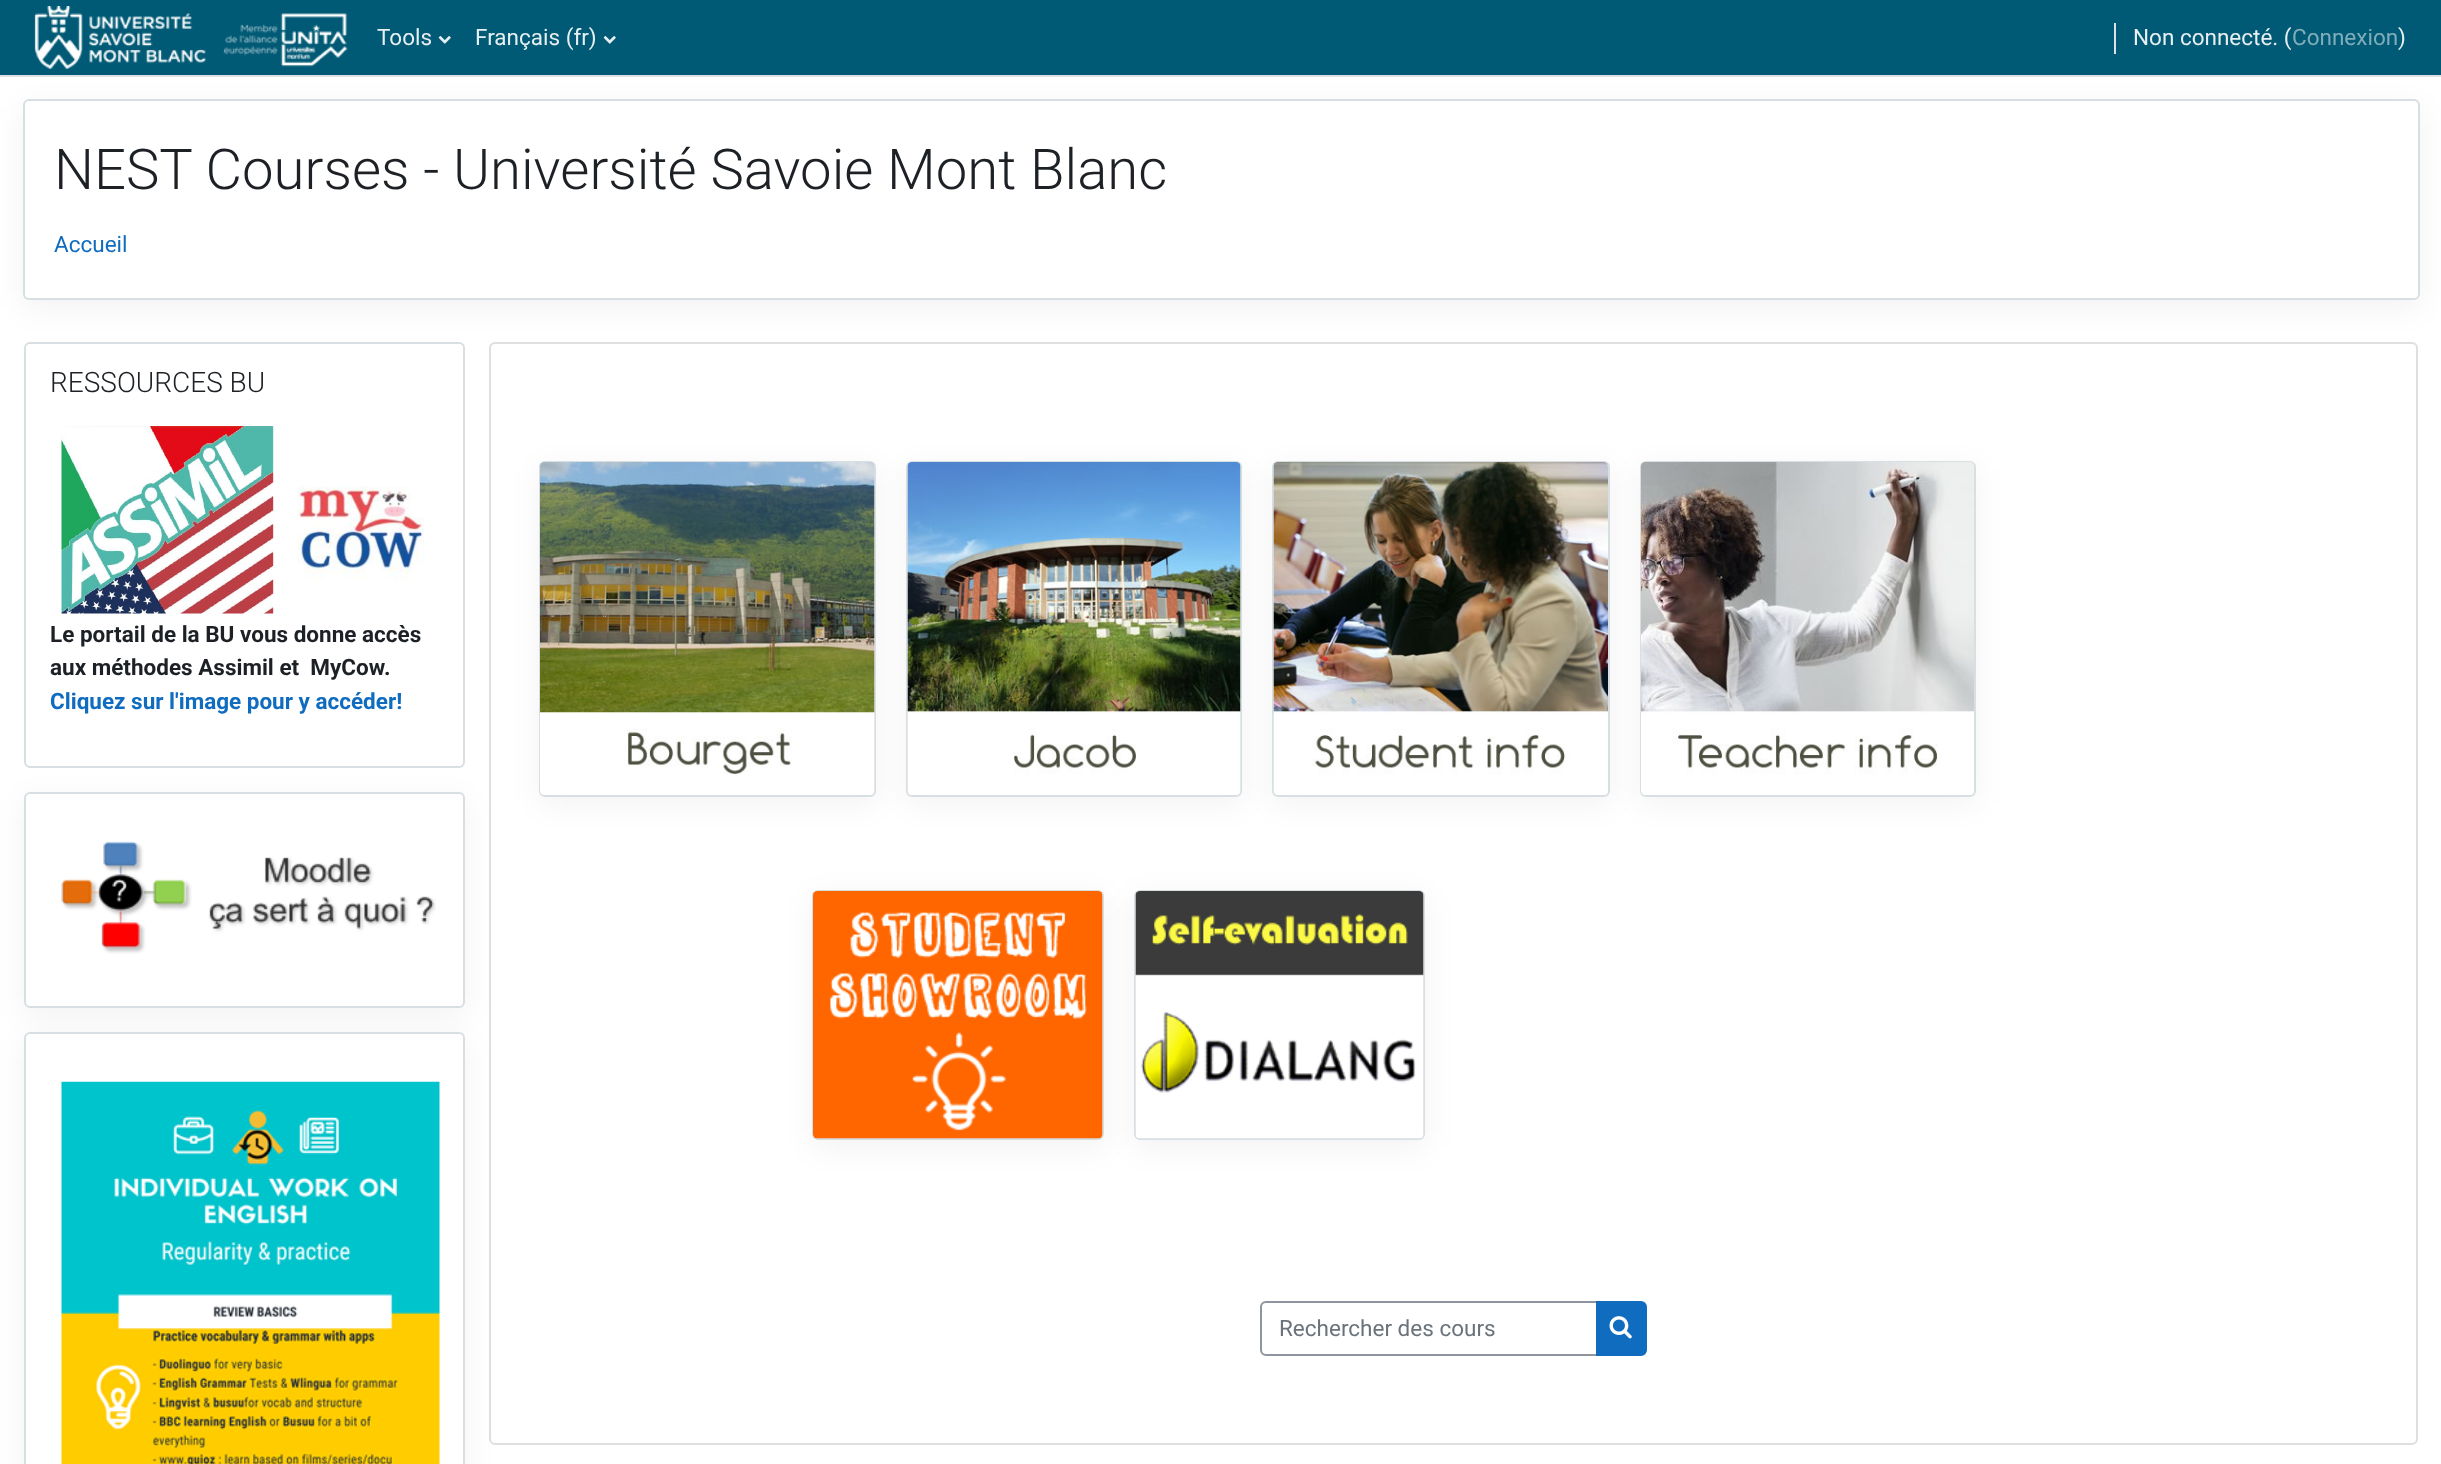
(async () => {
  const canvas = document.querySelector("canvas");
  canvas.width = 2441;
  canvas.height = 1464;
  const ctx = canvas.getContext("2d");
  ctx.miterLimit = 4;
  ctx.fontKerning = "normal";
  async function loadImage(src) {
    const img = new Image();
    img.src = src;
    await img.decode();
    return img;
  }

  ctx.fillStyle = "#ffffff";
  ctx.fillRect(0, 0, 2441, 1464);
  ctx.beginPath();
  ctx.roundRect(490, 343, 1927, 1101, 5);
  ctx.strokeStyle = "#dfdfdf";
  ctx.lineWidth = 2;
  ctx.stroke();
  ctx.fillStyle = "rgba(0, 0, 0, 0.05)";
  ctx.filter = "blur(15px)";
  ctx.beginPath();
  ctx.roundRect(23, 107, 2397, 201, 6);
  ctx.fill();
  ctx.filter = "none";
  ctx.fillStyle = "#005a75";
  ctx.fillRect(0, 0, 2441, 75);
  ctx.fillStyle = "#dee2e6";
  ctx.fillRect(0, 75, 2441, 2);
  ctx.drawImage(await loadImage("img/1.png"), 34, 6, 314, 63);
  ctx.drawImage(await loadImage("img/2.png"), 438, 36, 13, 8);
  ctx.drawImage(await loadImage("img/2.png"), 603, 36, 13, 8);
  ctx.fillRect(2114, 23, 2, 31);
  ctx.fillStyle = "#ffffff";
  ctx.beginPath();
  ctx.roundRect(24, 100, 2395, 199, 5);
  ctx.fill();
  ctx.strokeStyle = "#d7dfe3";
  ctx.stroke();
  ctx.beginPath();
  ctx.roundRect(25, 343, 439, 424, 5);
  ctx.stroke();
  ctx.drawImage(await loadImage("img/3.png"), 61, 426, 363, 188);
  ctx.fillStyle = "rgba(0, 0, 0, 0.05)";
  ctx.filter = "blur(15px)";
  ctx.beginPath();
  ctx.roundRect(24, 800, 441, 216, 6);
  ctx.fill();
  ctx.filter = "none";
  ctx.fillStyle = "#ffffff";
  ctx.beginPath();
  ctx.roundRect(25, 793, 439, 214, 5);
  ctx.fill();
  ctx.stroke();
  ctx.drawImage(await loadImage("img/4.png"), 61, 841, 375, 113);
  ctx.fillStyle = "rgba(0, 0, 0, 0.05)";
  ctx.filter = "blur(15px)";
  ctx.beginPath();
  ctx.roundRect(24, 1040, 441, 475, 6);
  ctx.fill();
  ctx.filter = "none";
  ctx.fillStyle = "#ffffff";
  ctx.beginPath();
  ctx.roundRect(25, 1033, 439, 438, 5);
  ctx.fill();
  ctx.stroke();
  ctx.drawImage(await loadImage("img/5.png"), 61, 1081, 379, 383);
  ctx.fillStyle = "rgba(0, 0, 0, 0.05)";
  ctx.filter = "blur(15px)";
  ctx.beginPath();
  ctx.roundRect(539, 468, 337, 336, 6);
  ctx.fill();
  ctx.filter = "none";
  ctx.beginPath();
  ctx.roundRect(540, 462, 335, 334, 5);
  ctx.stroke();
  ctx.drawImage(await loadImage("img/6.png"), 540, 462, 335, 333);
  ctx.filter = "blur(15px)";
  ctx.beginPath();
  ctx.roundRect(906, 468, 336, 336, 6);
  ctx.fill();
  ctx.filter = "none";
  ctx.beginPath();
  ctx.roundRect(907, 462, 334, 334, 5);
  ctx.stroke();
  ctx.drawImage(await loadImage("img/7.png"), 907, 462, 334, 333);
  ctx.filter = "blur(15px)";
  ctx.beginPath();
  ctx.roundRect(1272, 468, 338, 336, 6);
  ctx.fill();
  ctx.filter = "none";
  ctx.fillStyle = "#ffffff";
  ctx.beginPath();
  ctx.roundRect(1273, 462, 336, 334, 5);
  ctx.fill();
  ctx.stroke();
  ctx.drawImage(await loadImage("img/8.png"), 1273, 462, 335, 333);
  ctx.fillStyle = "rgba(0, 0, 0, 0.05)";
  ctx.filter = "blur(15px)";
  ctx.beginPath();
  ctx.roundRect(1640, 468, 336, 336, 6);
  ctx.fill();
  ctx.filter = "none";
  ctx.fillStyle = "#ffffff";
  ctx.beginPath();
  ctx.roundRect(1641, 462, 334, 334, 5);
  ctx.fill();
  ctx.stroke();
  ctx.drawImage(await loadImage("img/9.png"), 1641, 462, 333, 333);
  ctx.fillStyle = "rgba(0, 0, 0, 0.05)";
  ctx.filter = "blur(15px)";
  ctx.beginPath();
  ctx.roundRect(812, 897, 292, 251, 6);
  ctx.fill();
  ctx.filter = "none";
  ctx.beginPath();
  ctx.roundRect(813, 891, 290, 248, 5);
  ctx.stroke();
  ctx.drawImage(await loadImage("img/10.png"), 813, 891, 290, 248);
  ctx.filter = "blur(15px)";
  ctx.beginPath();
  ctx.roundRect(1134, 897, 291, 251, 6);
  ctx.fill();
  ctx.filter = "none";
  ctx.beginPath();
  ctx.roundRect(1135, 891, 289, 248, 5);
  ctx.stroke();
  ctx.drawImage(await loadImage("img/11.png"), 1135, 891, 289, 248);
  ctx.beginPath();
  ctx.roundRect(1261, 1302, 336, 53, [5, 0, 0, 5]);
  ctx.strokeStyle = "#8f959e";
  ctx.stroke();
  ctx.fillStyle = "#0f6cbf";
  ctx.beginPath();
  ctx.roundRect(1597, 1302, 49, 53, [0, 5, 5, 0]);
  ctx.fill();
  ctx.strokeStyle = "#0f6cbf";
  ctx.stroke();
  ctx.drawImage(await loadImage("img/12.png"), 1609, 1316, 23, 23);
  ctx.font = "22.5px Roboto";
  ctx.fillStyle = "#e6eff1";
  for (const [text, x, y] of [
    ["Tools", 377, 45],
    ["Français (fr)", 475, 45],
    ["Non connecté. (", 2133, 45],
  ]) {
    ctx.fillText(text, x, y);
  }
  ctx.fillStyle = "#80adba";
  ctx.fillText("Connexion", 2292, 45);
  ctx.fillStyle = "#e6eff1";
  ctx.fillText(")", 2398, 45);
  ctx.font = "300 56.25px Roboto";
  ctx.fillStyle = "#1d2125";
  ctx.fillText("NEST Courses - Université Savoie Mont Blanc", 54, 189);
  ctx.font = "22.5px Roboto";
  ctx.fillStyle = "#0f6cbf";
  ctx.fillText("Accueil", 54, 252);
  ctx.font = "300 28px Roboto";
  ctx.fillStyle = "#1d2125";
  ctx.fillText("RESSOURCES BU", 50, 392);
  ctx.font = "bold 22.5px Roboto";
  ctx.fillText("Le portail de la BU vous donne accès", 50, 642);
  ctx.fillText("aux méthodes Assimil et  MyCow.", 50, 675);
  ctx.fillStyle = "#0f6cbf";
  ctx.fillText("Cliquez sur l'image pour y accéder!", 50, 709);
  ctx.font = "22.5px Roboto";
  ctx.fillStyle = "#6a737b";
  ctx.fillText("Rechercher des cours", 1279, 1336);
})();
